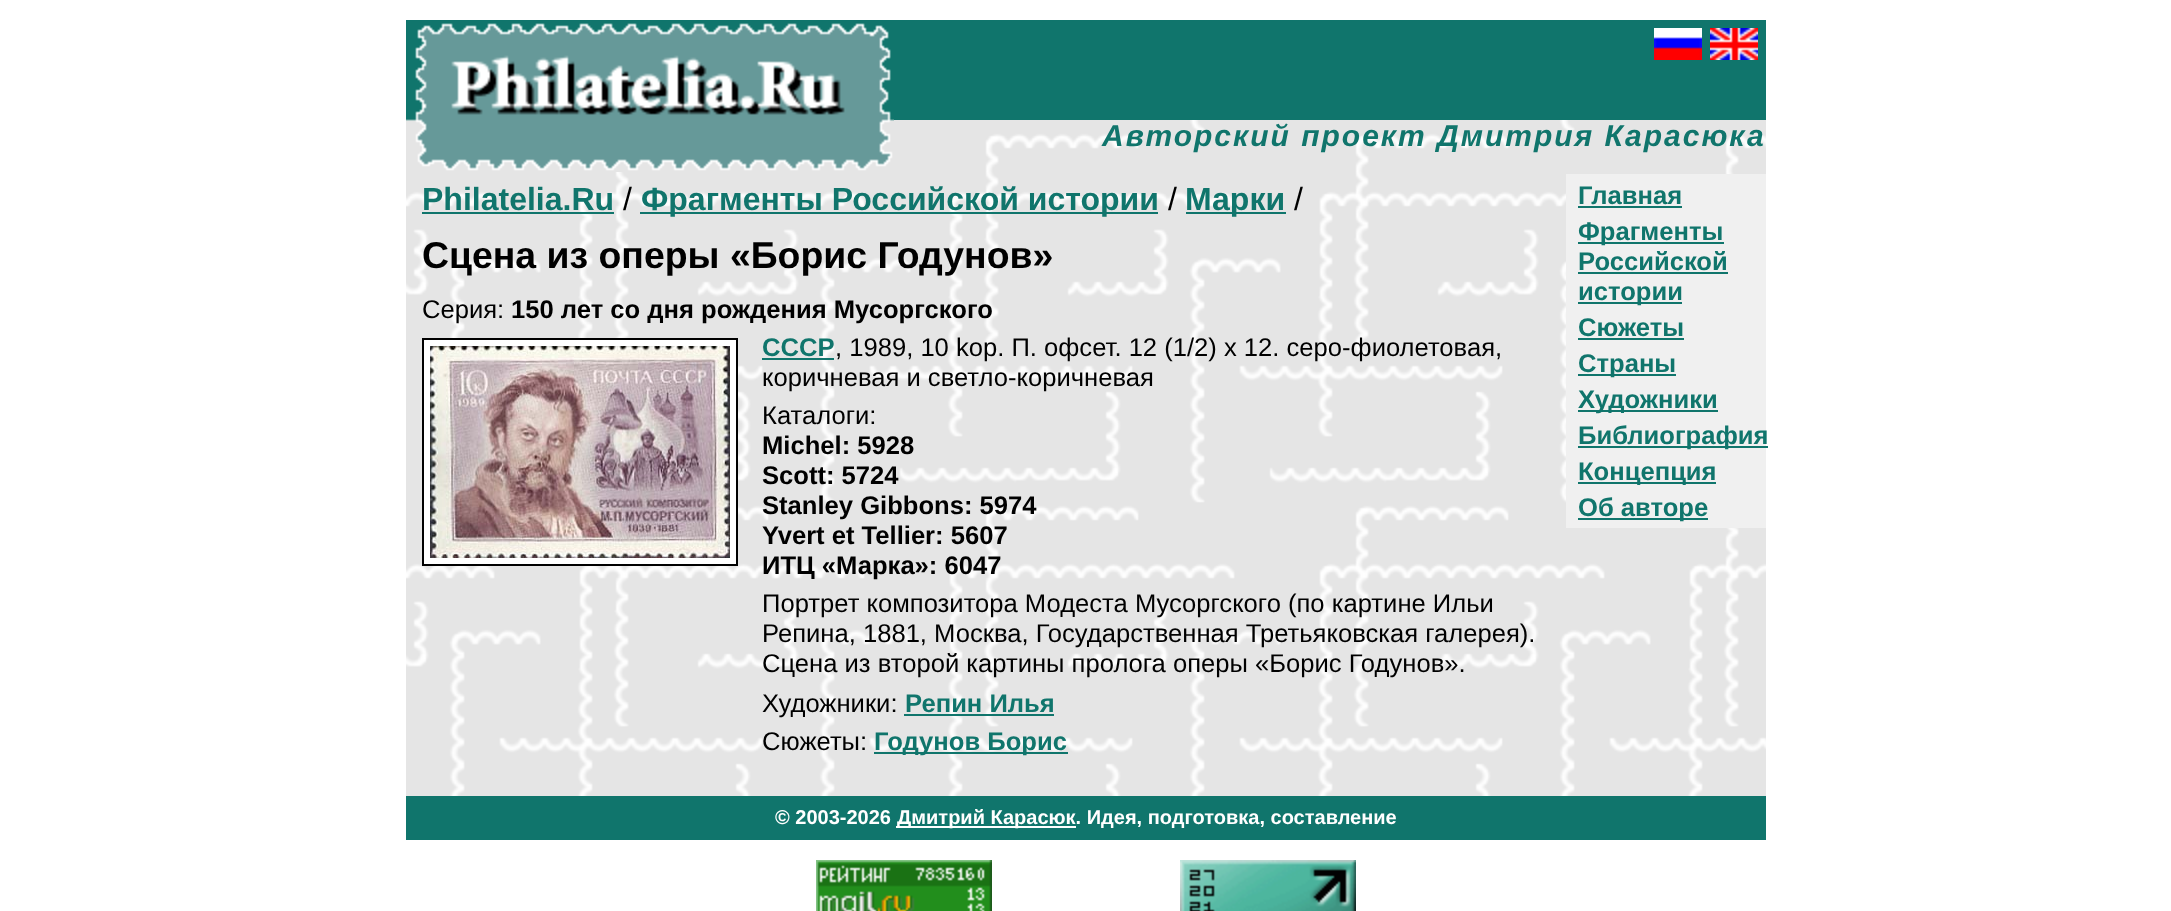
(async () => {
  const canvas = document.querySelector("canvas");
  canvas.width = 2171;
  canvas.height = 911;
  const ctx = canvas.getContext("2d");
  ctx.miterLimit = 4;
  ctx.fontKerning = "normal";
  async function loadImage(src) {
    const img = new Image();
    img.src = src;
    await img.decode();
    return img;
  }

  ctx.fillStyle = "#ffffff";
  ctx.fillRect(0, 0, 2171, 911);
  ctx.drawImage(await loadImage("img/1.png"), 406, 120, 1360, 676);
  ctx.fillStyle = "#10756c";
  ctx.fillRect(406, 20, 488, 99);
  ctx.drawImage(await loadImage("img/2.png"), 406, 119, 488, 53);
  ctx.drawImage(await loadImage("img/3.png"), 415, 23, 478, 148);
  ctx.fillRect(894, 20, 872, 100);
  ctx.drawImage(await loadImage("img/4.png"), 1654, 28, 48, 32);
  ctx.drawImage(await loadImage("img/5.png"), 1710, 28, 48, 32);
  for (const [x, y, w, h, color] of [
    [422, 212, 192, 2, "#10756c"],
    [640, 212, 518, 2, "#10756c"],
    [1186, 212, 100, 2, "#10756c"],
    [1566, 174, 200, 354, "#f0f0f0"],
    [1578, 206, 104, 2, "#10756c"],
    [1578, 242, 146, 2, "#10756c"],
    [1578, 272, 150, 2, "#10756c"],
    [1578, 302, 104, 2, "#10756c"],
    [1578, 338, 106, 2, "#10756c"],
    [1578, 374, 98, 2, "#10756c"],
    [1578, 410, 140, 2, "#10756c"],
    [1578, 446, 190, 2, "#10756c"],
    [1578, 482, 138, 2, "#10756c"],
    [1578, 518, 130, 2, "#10756c"],
  ]) {
    ctx.fillStyle = color;
    ctx.fillRect(x, y, w, h);
  }
  ctx.fillStyle = "#ffffff";
  ctx.beginPath();
  ctx.rect(423, 339, 314, 226);
  ctx.fill();
  ctx.strokeStyle = "#000000";
  ctx.lineWidth = 2;
  ctx.stroke();
  ctx.drawImage(await loadImage("img/6.png"), 430, 346, 300, 212);
  for (const [x, y, w, h, color] of [
    [762, 358, 72, 2, "#10756c"],
    [904, 714, 150, 2, "#10756c"],
    [874, 752, 194, 2, "#10756c"],
    [406, 796, 1360, 44, "#10756c"],
    [896, 826, 180, 2, "#ffffff"],
  ]) {
    ctx.fillStyle = color;
    ctx.fillRect(x, y, w, h);
  }
  ctx.drawImage(await loadImage("img/7.png"), 816, 860, 176, 51);
  ctx.drawImage(await loadImage("img/8.png"), 1180, 860, 176, 51);
  ctx.letterSpacing = "2px";
  ctx.font = "italic bold 30px Liberation Sans";
  ctx.fillStyle = "#10756c";
  ctx.fillText("Авторский проект Дмитрия Карасюка", 1102, 146);
  ctx.letterSpacing = "0px";
  ctx.font = "bold 32px Liberation Sans";
  ctx.fillText("Philatelia.Ru", 422, 210);
  ctx.font = "32px Liberation Sans";
  ctx.fillStyle = "#000000";
  ctx.fillText("/", 623, 210);
  ctx.font = "bold 32px Liberation Sans";
  ctx.fillStyle = "#10756c";
  ctx.fillText("Фрагменты Российской истории", 641, 210);
  ctx.font = "32px Liberation Sans";
  ctx.fillStyle = "#000000";
  ctx.fillText("/", 1168, 210);
  ctx.font = "bold 32px Liberation Sans";
  ctx.fillStyle = "#10756c";
  ctx.fillText("Марки", 1185, 210);
  ctx.font = "32px Liberation Sans";
  ctx.fillStyle = "#000000";
  ctx.fillText("/", 1294, 210);
  ctx.font = "bold 25.6px Liberation Sans";
  ctx.fillStyle = "#10756c";
  for (const [text, x, y] of [
    ["Главная", 1578, 204],
    ["Фрагменты", 1578, 240],
    ["Российской", 1578, 270],
    ["истории", 1578, 300],
    ["Сюжеты", 1578, 336],
    ["Страны", 1578, 372],
    ["Художники", 1578, 408],
    ["Библиография", 1578, 444],
    ["Концепция", 1578, 480],
    ["Об авторе", 1578, 516],
  ]) {
    ctx.fillText(text, x, y);
  }
  ctx.font = "bold 37.4px Liberation Sans";
  ctx.fillStyle = "#000000";
  ctx.fillText("Сцена из оперы «Борис Годунов»", 422, 268);
  ctx.font = "25.6px Liberation Sans";
  ctx.fillText("Серия:", 422, 318);
  ctx.font = "bold 25.6px Liberation Sans";
  ctx.fillText("150 лет со дня рождения Мусоргского", 511, 318);
  ctx.fillStyle = "#10756c";
  ctx.fillText("СССР", 762, 356);
  ctx.font = "25.6px Liberation Sans";
  ctx.fillStyle = "#000000";
  for (const [text, x, y] of [
    [", 1989, 10 kop. П. офсет. 12 (1/2) х 12. серо-фиолетовая,", 835, 356],
    ["коричневая и светло-коричневая", 762, 386],
    ["Каталоги:", 762, 424],
  ]) {
    ctx.fillText(text, x, y);
  }
  ctx.font = "bold 25.6px Liberation Sans";
  for (const [text, x, y] of [
    ["Michel: 5928", 762, 454],
    ["Scott: 5724", 762, 484],
    ["Stanley Gibbons: 5974", 762, 514],
    ["Yvert et Tellier: 5607", 762, 544],
    ["ИТЦ «Марка»: 6047", 762, 574],
  ]) {
    ctx.fillText(text, x, y);
  }
  ctx.font = "25.6px Liberation Sans";
  for (const [text, x, y] of [
    ["Портрет композитора Модеста Мусоргского (по картине Ильи", 762, 612],
    ["Репина, 1881, Москва, Государственная Третьяковская галерея).", 762, 642],
    ["Сцена из второй картины пролога оперы «Борис Годунов».", 762, 672],
    ["Художники:", 762, 712],
  ]) {
    ctx.fillText(text, x, y);
  }
  ctx.font = "bold 25.6px Liberation Sans";
  ctx.fillStyle = "#10756c";
  ctx.fillText("Репин Илья", 905, 712);
  ctx.font = "25.6px Liberation Sans";
  ctx.fillStyle = "#000000";
  ctx.fillText("Сюжеты:", 762, 750);
  ctx.font = "bold 25.6px Liberation Sans";
  ctx.fillStyle = "#10756c";
  ctx.fillText("Годунов Борис", 874, 750);
  ctx.font = "bold 20px Liberation Sans";
  ctx.fillStyle = "#ffffff";
  ctx.fillText("© 2003-2026", 775, 824);
  ctx.fillText("Дмитрий Карасюк. Идея, подготовка, составление", 897, 824);
})();
